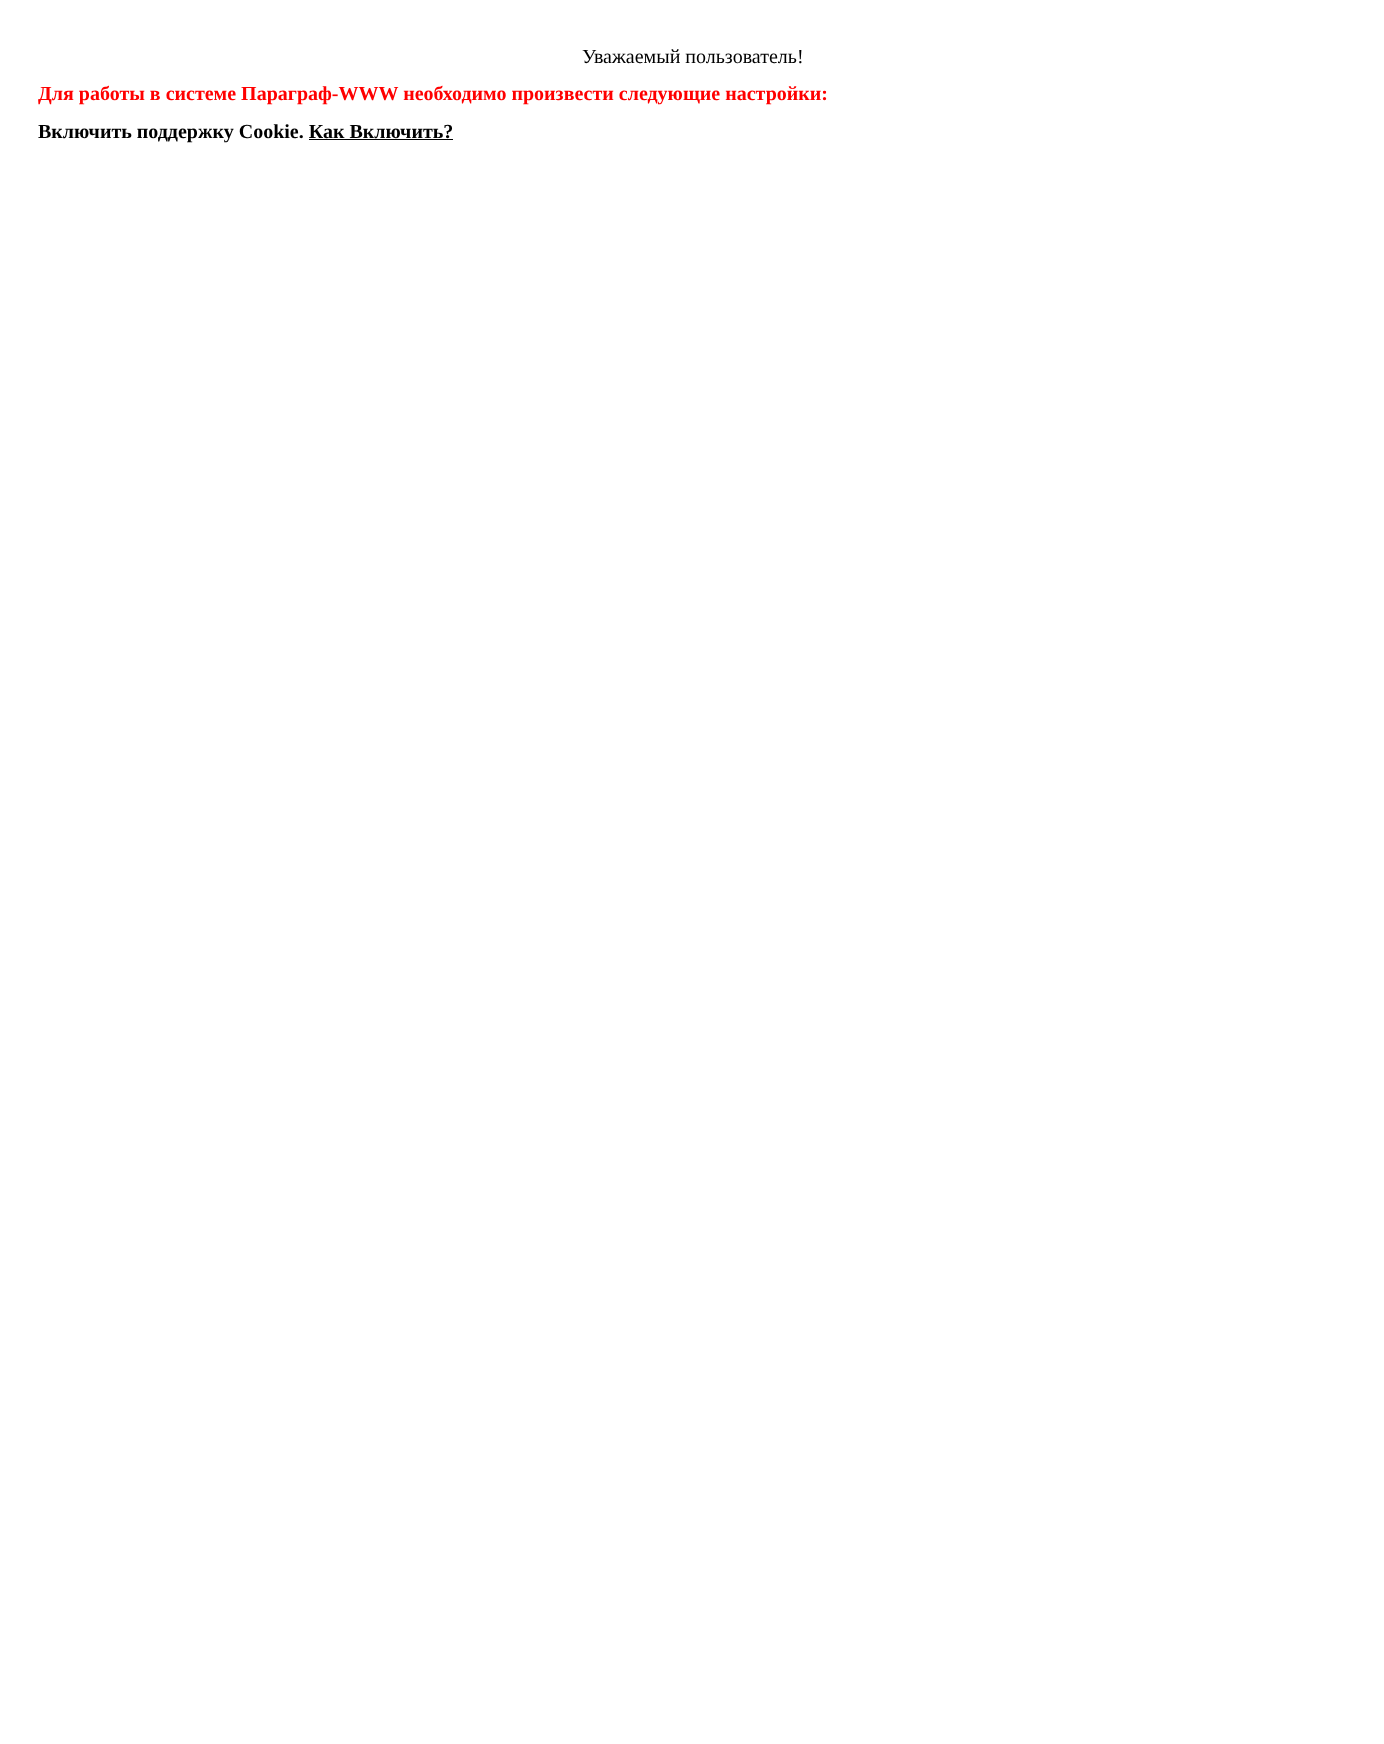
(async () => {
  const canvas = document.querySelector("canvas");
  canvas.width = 1384;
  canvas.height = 1744;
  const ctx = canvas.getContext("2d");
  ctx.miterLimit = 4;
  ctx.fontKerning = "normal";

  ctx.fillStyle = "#ffffff";
  ctx.fillRect(0, 0, 1384, 1744);
  ctx.fillStyle = "#000000";
  ctx.fillRect(309, 139, 144, 1);
  ctx.font = "20px Liberation Serif";
  ctx.fillText("Уважаемый пользователь!", 582, 63);
  ctx.font = "bold 20px Liberation Serif";
  ctx.fillStyle = "#ff0000";
  ctx.fillText("Для работы в системе Параграф-WWW необходимо произвести следующие настройки:", 38, 100);
  ctx.fillStyle = "#000000";
  ctx.fillText("Включить поддержку Cookie. Как Включить?", 38, 138);
})();
